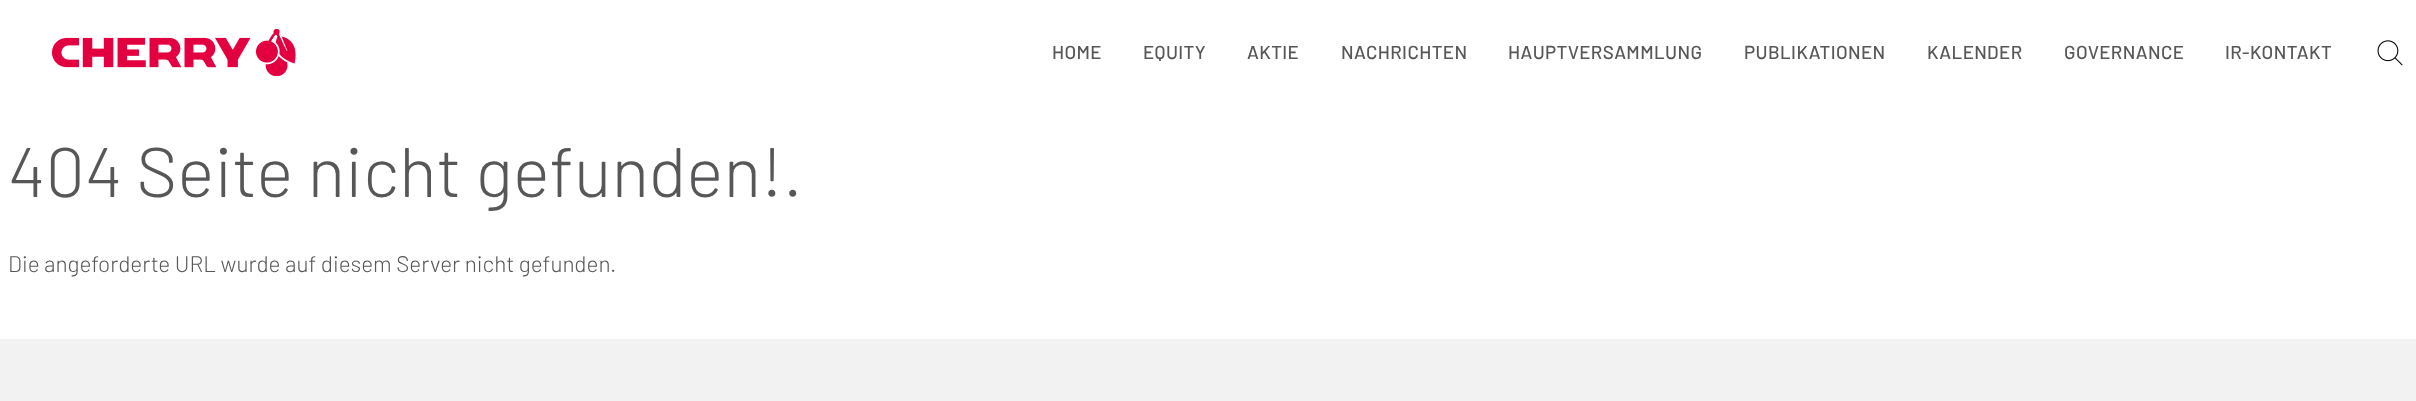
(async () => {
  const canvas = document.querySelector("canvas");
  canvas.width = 2416;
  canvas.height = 401;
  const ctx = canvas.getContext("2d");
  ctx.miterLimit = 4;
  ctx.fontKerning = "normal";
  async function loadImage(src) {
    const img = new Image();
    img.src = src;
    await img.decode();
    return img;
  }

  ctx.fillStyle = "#ffffff";
  ctx.fillRect(0, 0, 2416, 401);
  ctx.drawImage(await loadImage("img/1.png"), 52, 29, 244, 47);
  ctx.drawImage(await loadImage("img/2.png"), 2377, 40, 26, 26);
  ctx.fillStyle = "#f2f2f2";
  ctx.fillRect(0, 339, 2416, 62);
  ctx.letterSpacing = "0.4px";
  ctx.font = "500 18.75px Barlow";
  ctx.fillStyle = "#57575a";
  for (const [text, x, y] of [
    ["HOME", 1052, 59],
    ["EQUITY", 1143, 59],
    ["AKTIE", 1247, 59],
    ["NACHRICHTEN", 1341, 59],
    ["HAUPTVERSAMMLUNG", 1508, 59],
    ["PUBLIKATIONEN", 1744, 59],
    ["KALENDER", 1927, 59],
    ["GOVERNANCE", 2064, 59],
    ["IR-KONTAKT", 2225, 59],
  ]) {
    ctx.fillText(text, x, y);
  }
  ctx.letterSpacing = "0px";
  ctx.font = "300 70px Barlow";
  ctx.fillText("404 Seite nicht gefunden!.", 8, 197);
  ctx.font = "300 22.5px Barlow";
  ctx.fillText("Die angeforderte URL wurde auf diesem Server nicht gefunden.", 8, 272);
})();
